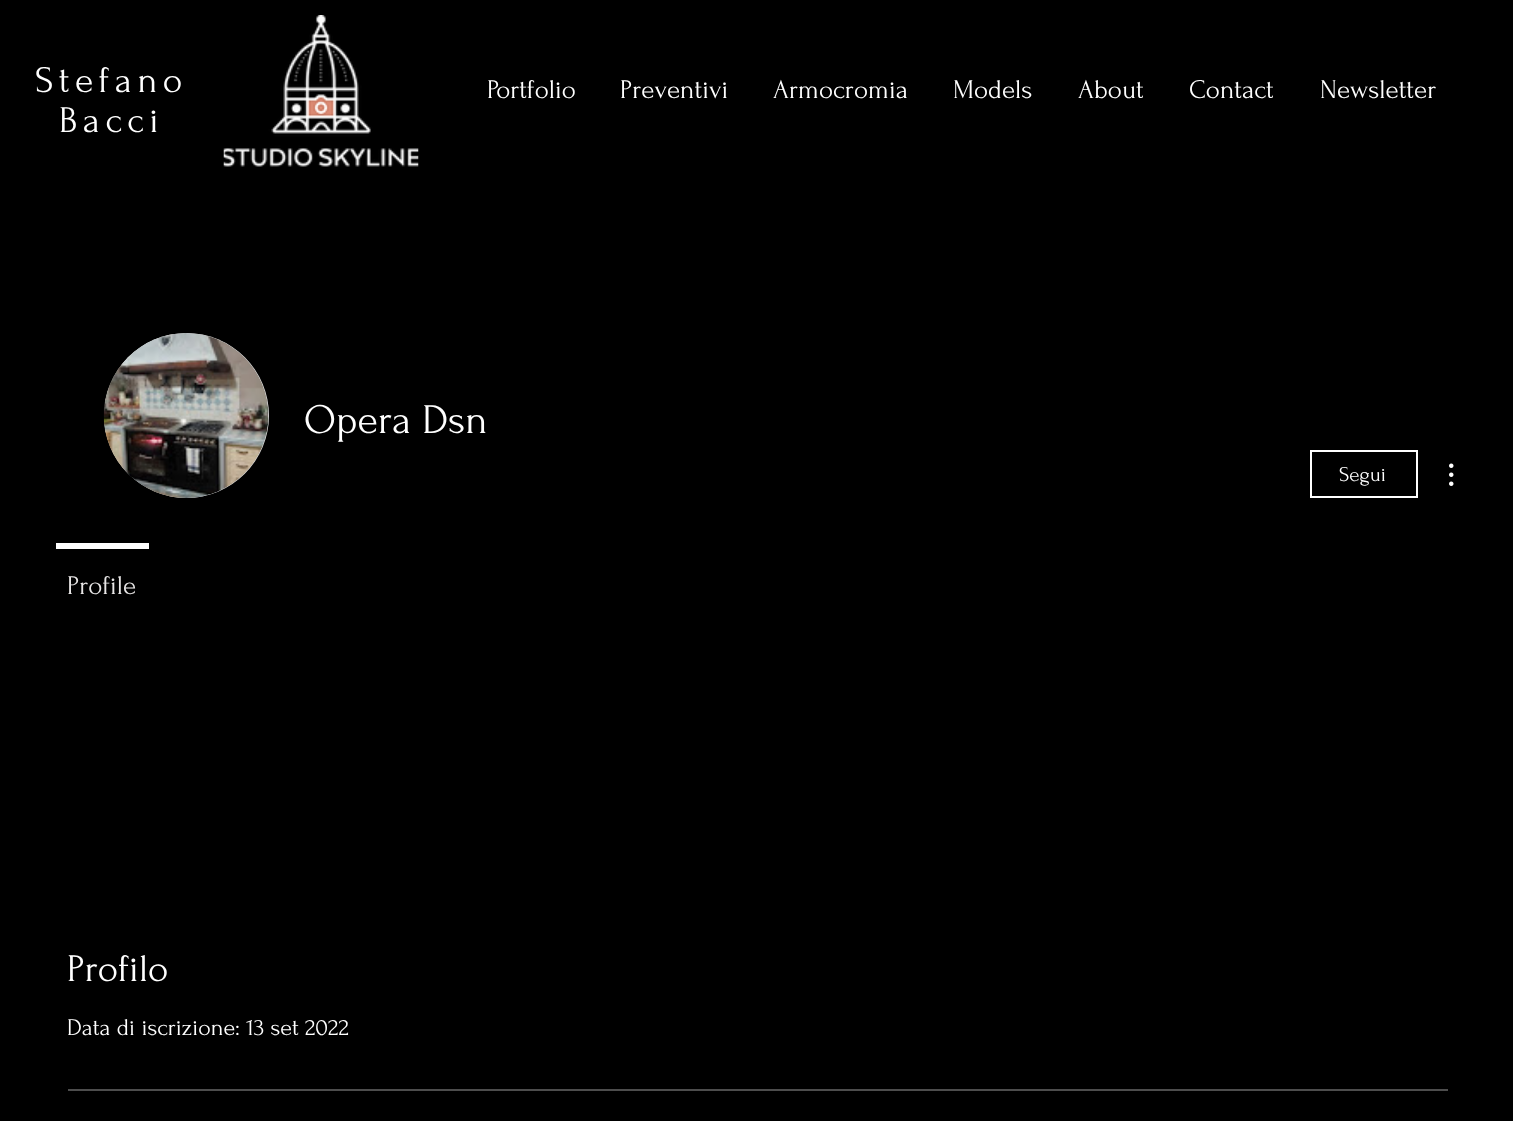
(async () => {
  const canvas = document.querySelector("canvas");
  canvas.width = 1513;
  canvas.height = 1121;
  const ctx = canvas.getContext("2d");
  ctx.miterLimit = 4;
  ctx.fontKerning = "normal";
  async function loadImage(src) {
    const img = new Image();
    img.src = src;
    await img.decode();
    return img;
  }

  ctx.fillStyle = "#000000";
  ctx.fillRect(0, 0, 1513, 1121);
  ctx.drawImage(await loadImage("img/1.png"), 223, 15, 196, 152);
  ctx.fillStyle = "#d8d8d8";
  ctx.beginPath();
  ctx.arc(186.5, 415.5, 82.5, 0, Math.PI * 2);
  ctx.fill();
  ctx.drawImage(await loadImage("img/2.png"), 103, 333, 166, 165);
  ctx.strokeStyle = "#ffffff";
  ctx.lineWidth = 2;
  ctx.strokeRect(1311, 451, 106, 46);
  ctx.drawImage(await loadImage("img/3.png"), 1449, 463, 5, 23);
  ctx.fillStyle = "#ffffff";
  ctx.fillRect(56, 543, 93, 6);
  ctx.fillStyle = "#4d4d4d";
  ctx.fillRect(68, 1089, 1380, 2);
  ctx.letterSpacing = "5.5px";
  ctx.font = "37.5px Forum";
  ctx.fillStyle = "#ffffff";
  ctx.fillText("Stefano", 35, 92);
  ctx.fillText("Bacci", 59, 132);
  ctx.letterSpacing = "0px";
  ctx.font = "27px Forum";
  for (const [text, x, y] of [
    ["Portfolio", 487, 98],
    ["Preventivi", 620, 98],
    ["Armocromia", 773, 98],
    ["Models", 953, 98],
    ["About", 1078, 98],
    ["Contact", 1189, 98],
    ["Newsletter", 1320, 98],
  ]) {
    ctx.fillText(text, x, y);
  }
  ctx.font = "42px Forum";
  ctx.fillText("Opera Dsn", 304, 433);
  ctx.font = "21px Forum";
  ctx.fillText("Segui", 1339, 481);
  ctx.font = "27px Forum";
  ctx.fillStyle = "#e8e6e6";
  ctx.fillText("Profile", 67, 594);
  ctx.font = "39px Forum";
  ctx.fillStyle = "#ffffff";
  ctx.fillText("Profilo", 67, 981);
  ctx.font = "24px Forum";
  ctx.fillText("Data di iscrizione: 13 set 2022", 67, 1035);
})();
